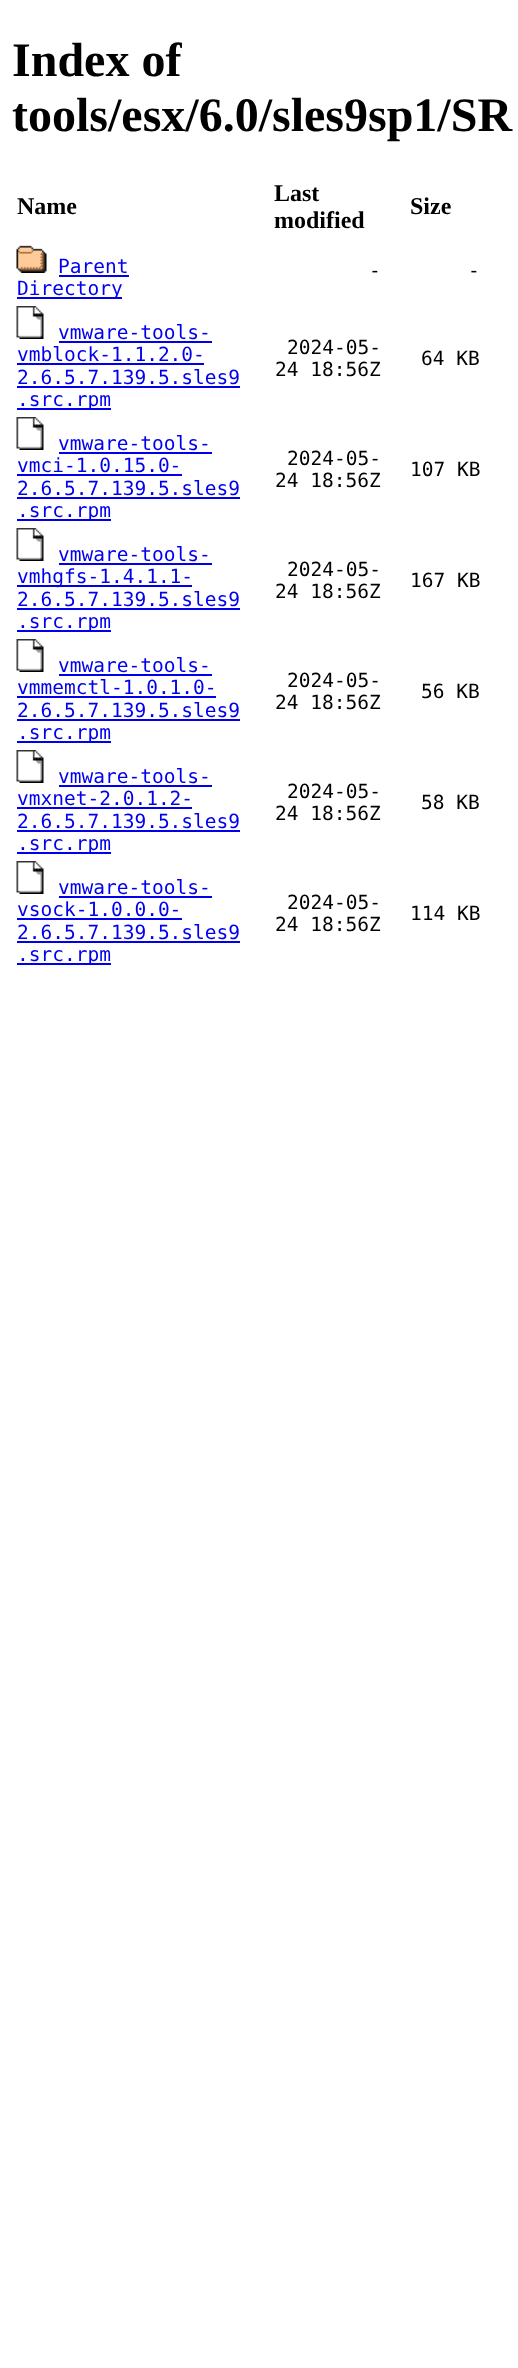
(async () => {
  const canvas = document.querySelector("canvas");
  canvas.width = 518;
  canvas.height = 2368;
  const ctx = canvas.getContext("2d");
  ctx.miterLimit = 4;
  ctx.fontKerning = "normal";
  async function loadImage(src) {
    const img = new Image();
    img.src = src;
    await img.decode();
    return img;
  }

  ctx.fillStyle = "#ffffff";
  ctx.fillRect(0, 0, 518, 2368);
  ctx.drawImage(await loadImage("img/1.png"), 16, 245, 31, 28);
  ctx.fillStyle = "#0000ee";
  ctx.fillRect(59, 275, 70, 2);
  ctx.fillRect(17, 297, 105, 2);
  ctx.drawImage(await loadImage("img/2.png"), 16, 306, 28, 33);
  for (const [x, y, w, h, color] of [
    [59, 341, 153, 2, "#0000ee"],
    [17, 363, 187, 2, "#0000ee"],
    [17, 386, 223, 2, "#0000ee"],
    [17, 408, 94, 2, "#0000ee"],
  ]) {
    ctx.fillStyle = color;
    ctx.fillRect(x, y, w, h);
  }
  ctx.drawImage(await loadImage("img/2.png"), 16, 417, 28, 33);
  for (const [x, y, w, h, color] of [
    [59, 452, 153, 2, "#0000ee"],
    [17, 474, 165, 2, "#0000ee"],
    [17, 497, 223, 2, "#0000ee"],
    [17, 519, 94, 2, "#0000ee"],
  ]) {
    ctx.fillStyle = color;
    ctx.fillRect(x, y, w, h);
  }
  ctx.drawImage(await loadImage("img/2.png"), 16, 528, 28, 33);
  for (const [x, y, w, h, color] of [
    [59, 563, 153, 2, "#0000ee"],
    [17, 585, 175, 2, "#0000ee"],
    [17, 608, 223, 2, "#0000ee"],
    [17, 630, 94, 2, "#0000ee"],
  ]) {
    ctx.fillStyle = color;
    ctx.fillRect(x, y, w, h);
  }
  ctx.drawImage(await loadImage("img/2.png"), 16, 639, 28, 33);
  for (const [x, y, w, h, color] of [
    [59, 674, 153, 2, "#0000ee"],
    [17, 696, 199, 2, "#0000ee"],
    [17, 719, 223, 2, "#0000ee"],
    [17, 741, 94, 2, "#0000ee"],
  ]) {
    ctx.fillStyle = color;
    ctx.fillRect(x, y, w, h);
  }
  ctx.drawImage(await loadImage("img/2.png"), 16, 750, 28, 33);
  for (const [x, y, w, h, color] of [
    [59, 785, 153, 2, "#0000ee"],
    [17, 807, 175, 2, "#0000ee"],
    [17, 830, 223, 2, "#0000ee"],
    [17, 852, 94, 2, "#0000ee"],
  ]) {
    ctx.fillStyle = color;
    ctx.fillRect(x, y, w, h);
  }
  ctx.drawImage(await loadImage("img/2.png"), 16, 861, 28, 33);
  for (const [x, y, w, h, color] of [
    [59, 896, 153, 2, "#0000ee"],
    [17, 918, 165, 2, "#0000ee"],
    [17, 941, 223, 2, "#0000ee"],
    [17, 963, 94, 2, "#0000ee"],
  ]) {
    ctx.fillStyle = color;
    ctx.fillRect(x, y, w, h);
  }
  ctx.font = "bold 48px Liberation Serif";
  ctx.fillStyle = "#000000";
  ctx.fillText("Index of", 12, 76);
  ctx.fillText("tools/esx/6.0/sles9sp1/SR", 12, 131);
  ctx.font = "bold 24px Liberation Serif";
  for (const [text, x, y] of [
    ["Name", 17, 214],
    ["Last", 274, 201],
    ["modified", 274, 228],
    ["Size", 410, 214],
  ]) {
    ctx.fillText(text, x, y);
  }
  ctx.font = "19.5px DejaVu Sans Mono";
  ctx.fillStyle = "#0000ee";
  ctx.fillText("Parent", 58, 273);
  ctx.fillText("Directory", 17, 295);
  ctx.fillStyle = "#000000";
  ctx.fillText("-", 369, 277);
  ctx.fillText("-", 468, 277);
  ctx.fillStyle = "#0000ee";
  for (const [text, x, y] of [
    ["vmware-tools-", 58, 339],
    ["vmblock-1.1.2.0-", 17, 361],
    ["2.6.5.7.139.5.sles9", 17, 384],
    [".src.rpm", 17, 406],
  ]) {
    ctx.fillText(text, x, y);
  }
  ctx.fillStyle = "#000000";
  for (const [text, x, y] of [
    ["2024-05-", 287, 354],
    ["24 18:56Z", 275, 376],
    ["64 KB", 421, 365],
  ]) {
    ctx.fillText(text, x, y);
  }
  ctx.fillStyle = "#0000ee";
  for (const [text, x, y] of [
    ["vmware-tools-", 58, 450],
    ["vmci-1.0.15.0-", 17, 472],
    ["2.6.5.7.139.5.sles9", 17, 495],
    [".src.rpm", 17, 517],
  ]) {
    ctx.fillText(text, x, y);
  }
  ctx.fillStyle = "#000000";
  for (const [text, x, y] of [
    ["2024-05-", 287, 465],
    ["24 18:56Z", 275, 487],
    ["107 KB", 410, 476],
  ]) {
    ctx.fillText(text, x, y);
  }
  ctx.fillStyle = "#0000ee";
  for (const [text, x, y] of [
    ["vmware-tools-", 58, 561],
    ["vmhgfs-1.4.1.1-", 17, 583],
    ["2.6.5.7.139.5.sles9", 17, 606],
    [".src.rpm", 17, 628],
  ]) {
    ctx.fillText(text, x, y);
  }
  ctx.fillStyle = "#000000";
  for (const [text, x, y] of [
    ["2024-05-", 287, 576],
    ["24 18:56Z", 275, 598],
    ["167 KB", 410, 587],
  ]) {
    ctx.fillText(text, x, y);
  }
  ctx.fillStyle = "#0000ee";
  for (const [text, x, y] of [
    ["vmware-tools-", 58, 672],
    ["vmmemctl-1.0.1.0-", 17, 694],
    ["2.6.5.7.139.5.sles9", 17, 717],
    [".src.rpm", 17, 739],
  ]) {
    ctx.fillText(text, x, y);
  }
  ctx.fillStyle = "#000000";
  for (const [text, x, y] of [
    ["2024-05-", 287, 687],
    ["24 18:56Z", 275, 709],
    ["56 KB", 421, 698],
  ]) {
    ctx.fillText(text, x, y);
  }
  ctx.fillStyle = "#0000ee";
  for (const [text, x, y] of [
    ["vmware-tools-", 58, 783],
    ["vmxnet-2.0.1.2-", 17, 805],
    ["2.6.5.7.139.5.sles9", 17, 828],
    [".src.rpm", 17, 850],
  ]) {
    ctx.fillText(text, x, y);
  }
  ctx.fillStyle = "#000000";
  for (const [text, x, y] of [
    ["2024-05-", 287, 798],
    ["24 18:56Z", 275, 820],
    ["58 KB", 421, 809],
  ]) {
    ctx.fillText(text, x, y);
  }
  ctx.fillStyle = "#0000ee";
  for (const [text, x, y] of [
    ["vmware-tools-", 58, 894],
    ["vsock-1.0.0.0-", 17, 916],
    ["2.6.5.7.139.5.sles9", 17, 939],
    [".src.rpm", 17, 961],
  ]) {
    ctx.fillText(text, x, y);
  }
  ctx.fillStyle = "#000000";
  for (const [text, x, y] of [
    ["2024-05-", 287, 909],
    ["24 18:56Z", 275, 931],
    ["114 KB", 410, 920],
  ]) {
    ctx.fillText(text, x, y);
  }
})();
